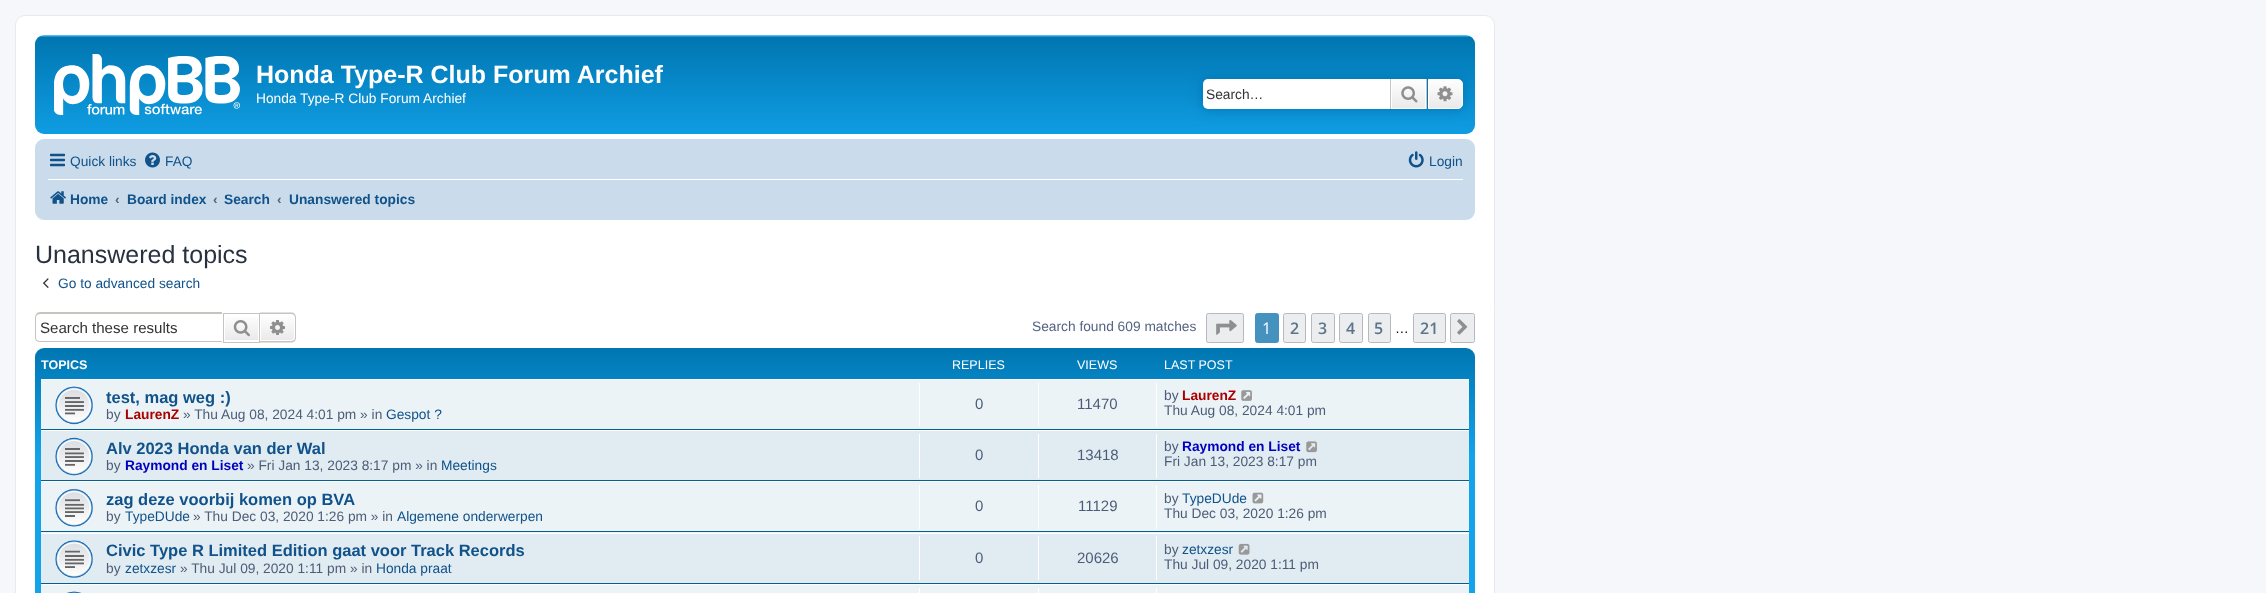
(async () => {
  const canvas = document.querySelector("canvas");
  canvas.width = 2266;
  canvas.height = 593;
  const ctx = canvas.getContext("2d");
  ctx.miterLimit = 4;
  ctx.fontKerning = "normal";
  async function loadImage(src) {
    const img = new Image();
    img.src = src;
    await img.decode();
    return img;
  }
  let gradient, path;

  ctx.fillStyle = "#f5f7fa";
  ctx.fillRect(0, 0, 2266, 593);
  ctx.fillStyle = "#ffffff";
  ctx.beginPath();
  ctx.roundRect(15.5, 15.5, 1479, 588, 9.5);
  ctx.fill();
  ctx.strokeStyle = "#e6e9ed";
  ctx.stroke();
  gradient = ctx.createLinearGradient(755, 35, 755, 150);
  gradient.addColorStop(0, "#6aceff");
  gradient.addColorStop(0.02, "#0076b1");
  gradient.addColorStop(1, "#12a3eb");
  ctx.fillStyle = gradient;
  ctx.beginPath();
  ctx.roundRect(35, 35, 1440, 99, 9);
  ctx.fill();
  ctx.drawImage(await loadImage("img/1.png"), 54, 54, 186, 61);
  ctx.fillStyle = "#0075b0";
  ctx.filter = "blur(6px)";
  ctx.beginPath();
  ctx.roundRect(1203, 79, 260, 30, 5);
  ctx.fill();
  ctx.filter = "none";
  ctx.fillStyle = "#ffffff";
  ctx.beginPath();
  ctx.roundRect(1203, 79, 187, 30, [5, 0, 0, 5]);
  ctx.fill();
  gradient = ctx.createLinearGradient(1409, 79, 1409, 109);
  gradient.addColorStop(0, "#ffffff");
  gradient.addColorStop(1, "#e9e9e9");
  ctx.fillStyle = gradient;
  ctx.fillRect(1392, 80, 33, 28);
  ctx.strokeStyle = "#ffffff";
  ctx.strokeRect(1391.5, 79.5, 34, 29);
  ctx.fillStyle = "#c7c3bf";
  ctx.fillRect(1426, 79, 1, 30);
  ctx.fillRect(1390, 79, 1, 30);
  ctx.drawImage(await loadImage("img/2.png"), 1401, 86, 17, 17);
  gradient = ctx.createLinearGradient(1445, 79, 1445, 109);
  gradient.addColorStop(0, "#ffffff");
  gradient.addColorStop(1, "#e9e9e9");
  ctx.fillStyle = gradient;
  ctx.beginPath();
  ctx.roundRect(1428.5, 79.5, 34, 29, [0, 4.5, 4.5, 0]);
  ctx.fill();
  ctx.stroke();
  ctx.drawImage(await loadImage("img/3.png"), 1437, 86, 16, 16);
  ctx.fillStyle = "#cadceb";
  ctx.beginPath();
  ctx.roundRect(35, 139, 1440, 81, 9);
  ctx.fill();
  ctx.drawImage(await loadImage("img/4.png"), 50, 153, 15, 14);
  ctx.drawImage(await loadImage("img/5.png"), 145, 152, 15, 16);
  ctx.drawImage(await loadImage("img/6.png"), 1408, 151, 16, 17);
  ctx.fillStyle = "#ffffff";
  ctx.fillRect(48, 179, 1415, 1);
  ctx.drawImage(await loadImage("img/7.png"), 50, 191, 16, 13);
  ctx.drawImage(await loadImage("img/8.png"), 43, 278, 6, 10);
  ctx.fillStyle = "#c7c3bf";
  path = new Path2D("M40 312H222V342H40C37 342 35 340 35 338V318C35 315 37 312 40 312ZM40 314H222V341H40C38 341 36 340 36 338V318C36 315 38 314 40 314Z");
  ctx.fill(path, "evenodd");
  gradient = ctx.createLinearGradient(241, 314, 241, 341);
  gradient.addColorStop(0, "#ffffff");
  gradient.addColorStop(1, "#e9e9e9");
  ctx.fillStyle = gradient;
  ctx.fillRect(225, 317, 33, 23);
  ctx.strokeStyle = "#c7c3bf";
  ctx.strokeRect(223.5, 313.5, 36, 29);
  ctx.drawImage(await loadImage("img/9.png"), 233, 320, 17, 17);
  gradient = ctx.createLinearGradient(278, 314, 278, 341);
  gradient.addColorStop(0, "#ffffff");
  gradient.addColorStop(1, "#e9e9e9");
  ctx.fillStyle = gradient;
  ctx.beginPath();
  ctx.roundRect(260.5, 314.5, 34, 26, [0, 3.5, 3.5, 0]);
  ctx.fill();
  ctx.strokeStyle = "#ffffff";
  ctx.stroke();
  ctx.fillStyle = "#c7c3bf";
  path = new Path2D("M260 312.5H291C294 312.5 296 314.5 296 317.5V337.5C296 340.5 294 342.5 291 342.5H260ZM260 314H291C293.5 314 295 315.5 295 317.5V337.5C295 339.5 293.5 341 291 341H260Z");
  ctx.fill(path, "evenodd");
  ctx.drawImage(await loadImage("img/10.png"), 270, 320, 15, 15);
  ctx.fillStyle = "#ecedee";
  ctx.beginPath();
  ctx.roundRect(1206.5, 313.5, 37, 29, 2);
  ctx.fill();
  ctx.strokeStyle = "#b4bac0";
  ctx.stroke();
  ctx.drawImage(await loadImage("img/11.png"), 1216, 320, 21, 15);
  ctx.fillStyle = "#4692bf";
  ctx.beginPath();
  ctx.roundRect(1255.5, 313.5, 23, 29, 2);
  ctx.fill();
  ctx.strokeStyle = "#4692bf";
  ctx.stroke();
  ctx.fillStyle = "#ecedee";
  ctx.beginPath();
  ctx.roundRect(1283.5, 313.5, 22, 29, 2);
  ctx.fill();
  ctx.strokeStyle = "#b4bac0";
  ctx.stroke();
  ctx.beginPath();
  ctx.roundRect(1311.5, 313.5, 23, 29, 2);
  ctx.fill();
  ctx.stroke();
  ctx.beginPath();
  ctx.roundRect(1339.5, 313.5, 23, 29, 2);
  ctx.fill();
  ctx.stroke();
  ctx.beginPath();
  ctx.roundRect(1368.5, 313.5, 22, 29, 2);
  ctx.fill();
  ctx.stroke();
  ctx.beginPath();
  ctx.roundRect(1413.5, 313.5, 32, 29, 2);
  ctx.fill();
  ctx.stroke();
  ctx.beginPath();
  ctx.roundRect(1450.5, 313.5, 24, 29, 2);
  ctx.fill();
  ctx.stroke();
  ctx.drawImage(await loadImage("img/12.png"), 1457, 319, 11, 16);
  gradient = ctx.createLinearGradient(755, 347, 755, 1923);
  gradient.addColorStop(0, "#6aceff");
  gradient.addColorStop(0, "#0076b1");
  gradient.addColorStop(0.07, "#12a3eb");
  gradient.addColorStop(1, "#12a3eb");
  ctx.fillStyle = gradient;
  ctx.beginPath();
  ctx.roundRect(35, 348, 1440, 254, 9);
  ctx.fill();
  for (const [x, y, w, h, color] of [
    [41, 380, 1428, 49, "#ecf3f7"],
    [41, 379, 1428, 1, "#ffffff"],
    [41, 429, 1428, 1, "#00608f"],
  ]) {
    ctx.fillStyle = color;
    ctx.fillRect(x, y, w, h);
  }
  ctx.drawImage(await loadImage("img/13.png"), 55, 386, 38, 39);
  for (const [x, y, w, h, color] of [
    [919, 383, 1, 43, "#ffffff"],
    [1038, 383, 1, 43, "#ffffff"],
    [1156, 383, 1, 43, "#ffffff"],
  ]) {
    ctx.fillStyle = color;
    ctx.fillRect(x, y, w, h);
  }
  ctx.drawImage(await loadImage("img/14.png"), 1241, 390, 11, 11);
  for (const [x, y, w, h, color] of [
    [41, 431, 1428, 49, "#e1ebf2"],
    [41, 430, 1428, 1, "#ffffff"],
    [41, 480, 1428, 1, "#00608f"],
  ]) {
    ctx.fillStyle = color;
    ctx.fillRect(x, y, w, h);
  }
  ctx.drawImage(await loadImage("img/15.png"), 55, 437, 38, 39);
  for (const [x, y, w, h, color] of [
    [919, 434, 1, 44, "#ffffff"],
    [1038, 434, 1, 44, "#ffffff"],
    [1156, 434, 1, 44, "#ffffff"],
  ]) {
    ctx.fillStyle = color;
    ctx.fillRect(x, y, w, h);
  }
  ctx.drawImage(await loadImage("img/16.png"), 1306, 441, 11, 12);
  for (const [x, y, w, h, color] of [
    [41, 482, 1428, 51, "#ecf3f7"],
    [41, 481, 1428, 1, "#ffffff"],
    [41, 531, 1428, 1, "#00608f"],
  ]) {
    ctx.fillStyle = color;
    ctx.fillRect(x, y, w, h);
  }
  ctx.drawImage(await loadImage("img/17.png"), 55, 488, 38, 39);
  for (const [x, y, w, h, color] of [
    [919, 485, 1, 44, "#ffffff"],
    [1038, 485, 1, 44, "#ffffff"],
    [1156, 485, 1, 44, "#ffffff"],
  ]) {
    ctx.fillStyle = color;
    ctx.fillRect(x, y, w, h);
  }
  ctx.drawImage(await loadImage("img/18.png"), 1252, 492, 12, 12);
  for (const [x, y, w, h, color] of [
    [41, 534, 1428, 49, "#e1ebf2"],
    [41, 533, 1428, 1, "#ffffff"],
    [41, 583, 1428, 1, "#00608f"],
  ]) {
    ctx.fillStyle = color;
    ctx.fillRect(x, y, w, h);
  }
  ctx.drawImage(await loadImage("img/19.png"), 55, 540, 38, 38);
  for (const [x, y, w, h, color] of [
    [919, 536, 1, 44, "#ffffff"],
    [1038, 536, 1, 44, "#ffffff"],
    [1156, 536, 1, 44, "#ffffff"],
  ]) {
    ctx.fillStyle = color;
    ctx.fillRect(x, y, w, h);
  }
  ctx.drawImage(await loadImage("img/20.png"), 1238, 543, 12, 12);
  ctx.fillStyle = "#ecf3f7";
  ctx.fillRect(41, 585, 1428, 8);
  ctx.fillStyle = "#ffffff";
  ctx.fillRect(41, 584, 1428, 1);
  ctx.drawImage(await loadImage("img/21.png"), 67, 591, 14, 2);
  for (const [x, y, w, h, color] of [
    [919, 588, 1, 5, "#ffffff"],
    [1038, 588, 1, 5, "#ffffff"],
    [1156, 588, 1, 5, "#ffffff"],
  ]) {
    ctx.fillStyle = color;
    ctx.fillRect(x, y, w, h);
  }
  ctx.font = "bold 25px Liberation Sans";
  ctx.fillText("Honda Type-R Club Forum Archief", 256, 83);
  ctx.font = "13.75px Liberation Sans";
  ctx.fillText("Honda Type-R Club Forum Archief", 256, 103);
  ctx.fillStyle = "#333333";
  ctx.fillText("Search…", 1206, 99);
  ctx.fillStyle = "#105289";
  for (const [text, x, y] of [
    ["Quick links", 70, 166],
    ["FAQ", 165, 166],
    ["Login", 1429, 166],
  ]) {
    ctx.fillText(text, x, y);
  }
  ctx.font = "bold 13.75px Liberation Sans";
  ctx.fillText("Home", 70, 204);
  ctx.fillStyle = "#536482";
  ctx.fillText("‹", 115, 204);
  ctx.fillStyle = "#105289";
  ctx.fillText("Board index", 127, 204);
  ctx.fillStyle = "#536482";
  ctx.fillText("‹", 213, 204);
  ctx.fillStyle = "#105289";
  ctx.fillText("Search", 224, 204);
  ctx.fillStyle = "#536482";
  ctx.fillText("‹", 277, 204);
  ctx.fillStyle = "#105289";
  ctx.fillText("Unanswered topics", 289, 204);
  ctx.font = "25px Liberation Sans";
  ctx.fillStyle = "#28313f";
  ctx.fillText("Unanswered topics", 35, 263);
  ctx.font = "13.75px Liberation Sans";
  ctx.fillStyle = "#105289";
  ctx.fillText("Go to advanced search", 58, 288);
  ctx.font = "15.1px Liberation Sans";
  ctx.fillStyle = "#333333";
  ctx.fillText("Search these results", 40, 333);
  ctx.font = "13.75px Liberation Sans";
  ctx.fillStyle = "#536482";
  ctx.fillText("Search found 609 matches", 1032, 331);
  ctx.font = "16px Open Sans";
  ctx.fillStyle = "#ffffff";
  ctx.fillText("1", 1262, 334);
  ctx.font = "600 16px Open Sans";
  ctx.fillStyle = "#5c758c";
  for (const [text, x, y] of [
    ["2", 1290, 334],
    ["3", 1318, 334],
    ["4", 1346, 334],
    ["5", 1374, 334],
  ]) {
    ctx.fillText(text, x, y);
  }
  ctx.font = "13.75px Liberation Sans";
  ctx.fillStyle = "#000000";
  ctx.fillText("…", 1395, 333);
  ctx.font = "600 16px Open Sans";
  ctx.fillStyle = "#5c758c";
  ctx.fillText("21", 1420, 334);
  ctx.font = "bold 12.5px Liberation Sans";
  ctx.fillStyle = "#ffffff";
  ctx.fillText("TOPICS", 41, 369);
  ctx.font = "12.5px Liberation Sans";
  for (const [text, x, y] of [
    ["REPLIES", 952, 369],
    ["VIEWS", 1077, 369],
    ["LAST POST", 1164, 369],
  ]) {
    ctx.fillText(text, x, y);
  }
  ctx.font = "bold 16.5px Liberation Sans";
  ctx.fillStyle = "#105289";
  ctx.fillText("test, mag weg :)", 106, 403);
  ctx.font = "13.75px Liberation Sans";
  ctx.fillStyle = "#4c5d77";
  ctx.fillText("by", 106, 419);
  ctx.font = "bold 13.75px Liberation Sans";
  ctx.fillStyle = "#aa0000";
  ctx.fillText("LaurenZ", 125, 419);
  ctx.font = "13.75px Liberation Sans";
  ctx.fillStyle = "#4c5d77";
  ctx.fillText("» Thu Aug 08, 2024 4:01 pm » in", 183, 419);
  ctx.fillStyle = "#105289";
  ctx.fillText("Gespot ?", 386, 419);
  ctx.font = "15px Liberation Sans";
  ctx.fillStyle = "#4c5d77";
  ctx.fillText("0", 975, 409);
  ctx.fillText("11470", 1077, 409);
  ctx.font = "13.75px Liberation Sans";
  ctx.fillText("by", 1164, 400);
  ctx.font = "bold 13.75px Liberation Sans";
  ctx.fillStyle = "#aa0000";
  ctx.fillText("LaurenZ", 1182, 400);
  ctx.font = "13.75px Liberation Sans";
  ctx.fillStyle = "#4c5d77";
  ctx.fillText("Thu Aug 08, 2024 4:01 pm", 1164, 415);
  ctx.font = "bold 16.5px Liberation Sans";
  ctx.fillStyle = "#105289";
  ctx.fillText("Alv 2023 Honda van der Wal", 106, 454);
  ctx.font = "13.75px Liberation Sans";
  ctx.fillStyle = "#4c5d77";
  ctx.fillText("by", 106, 470);
  ctx.font = "bold 13.75px Liberation Sans";
  ctx.fillStyle = "#0000bf";
  ctx.fillText("Raymond en Liset", 125, 470);
  ctx.font = "13.75px Liberation Sans";
  ctx.fillStyle = "#4c5d77";
  ctx.fillText("» Fri Jan 13, 2023 8:17 pm » in", 247, 470);
  ctx.fillStyle = "#105289";
  ctx.fillText("Meetings", 441, 470);
  ctx.font = "15px Liberation Sans";
  ctx.fillStyle = "#4c5d77";
  ctx.fillText("0", 975, 460);
  ctx.fillText("13418", 1077, 460);
  ctx.font = "13.75px Liberation Sans";
  ctx.fillText("by", 1164, 451);
  ctx.font = "bold 13.75px Liberation Sans";
  ctx.fillStyle = "#0000bf";
  ctx.fillText("Raymond en Liset", 1182, 451);
  ctx.font = "13.75px Liberation Sans";
  ctx.fillStyle = "#4c5d77";
  ctx.fillText("Fri Jan 13, 2023 8:17 pm", 1164, 466);
  ctx.font = "bold 16.5px Liberation Sans";
  ctx.fillStyle = "#105289";
  ctx.fillText("zag deze voorbij komen op BVA", 106, 505);
  ctx.font = "13.75px Liberation Sans";
  ctx.fillStyle = "#4c5d77";
  ctx.fillText("by", 106, 521);
  ctx.fillStyle = "#105289";
  ctx.fillText("TypeDUde", 125, 521);
  ctx.fillStyle = "#4c5d77";
  ctx.fillText("» Thu Dec 03, 2020 1:26 pm » in", 193, 521);
  ctx.fillStyle = "#105289";
  ctx.fillText("Algemene onderwerpen", 397, 521);
  ctx.font = "15px Liberation Sans";
  ctx.fillStyle = "#4c5d77";
  ctx.fillText("0", 975, 511);
  ctx.fillText("11129", 1078, 511);
  ctx.font = "13.75px Liberation Sans";
  ctx.fillText("by", 1164, 503);
  ctx.fillStyle = "#105289";
  ctx.fillText("TypeDUde", 1182, 503);
  ctx.fillStyle = "#4c5d77";
  ctx.fillText("Thu Dec 03, 2020 1:26 pm", 1164, 518);
  ctx.font = "bold 16.5px Liberation Sans";
  ctx.fillStyle = "#105289";
  ctx.fillText("Civic Type R Limited Edition gaat voor Track Records", 106, 556);
  ctx.font = "13.75px Liberation Sans";
  ctx.fillStyle = "#4c5d77";
  ctx.fillText("by", 106, 573);
  ctx.fillStyle = "#105289";
  ctx.fillText("zetxzesr", 125, 573);
  ctx.fillStyle = "#4c5d77";
  ctx.fillText("» Thu Jul 09, 2020 1:11 pm » in", 180, 573);
  ctx.fillStyle = "#105289";
  ctx.fillText("Honda praat", 376, 573);
  ctx.font = "15px Liberation Sans";
  ctx.fillStyle = "#4c5d77";
  ctx.fillText("0", 975, 563);
  ctx.fillText("20626", 1077, 563);
  ctx.font = "13.75px Liberation Sans";
  ctx.fillText("by", 1164, 554);
  ctx.fillStyle = "#105289";
  ctx.fillText("zetxzesr", 1182, 554);
  ctx.fillStyle = "#4c5d77";
  ctx.fillText("Thu Jul 09, 2020 1:11 pm", 1164, 569);
})();
